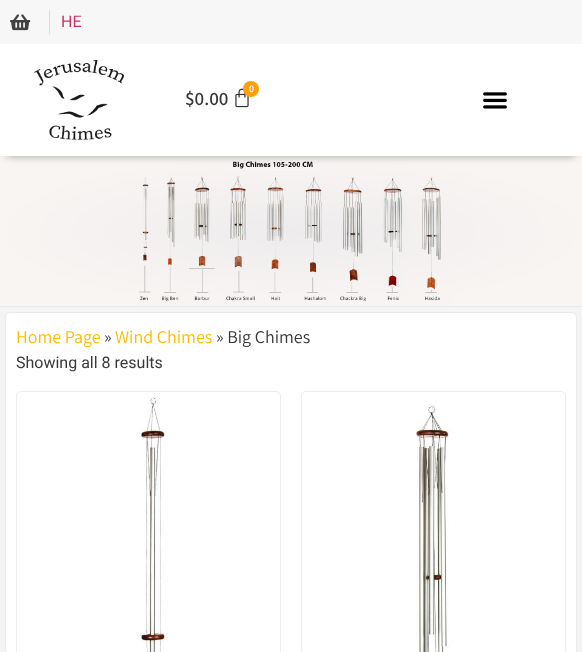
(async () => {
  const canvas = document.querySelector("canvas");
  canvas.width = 582;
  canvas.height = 652;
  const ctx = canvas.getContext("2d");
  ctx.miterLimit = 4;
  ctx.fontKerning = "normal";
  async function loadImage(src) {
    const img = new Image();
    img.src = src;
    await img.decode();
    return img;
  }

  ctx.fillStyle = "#f8f5f2";
  ctx.fillRect(0, 0, 582, 652);
  ctx.fillStyle = "#f7f7f7";
  ctx.fillRect(0, 0, 582, 44);
  ctx.drawImage(await loadImage("img/1.png"), 10, 14, 21, 17);
  ctx.fillStyle = "#dddddd";
  ctx.fillRect(49, 10, 1, 24);
  ctx.drawImage(await loadImage("img/5.png"), 0, 161, 582, 145);
  ctx.fillStyle = "rgba(0, 0, 0, 0.35)";
  ctx.filter = "blur(4px)";
  ctx.beginPath();
  ctx.rect(7, 58, 568, 98);
  ctx.fill();
  ctx.filter = "none";
  ctx.fillStyle = "#ffffff";
  ctx.fillRect(0, 44, 582, 112);
  ctx.drawImage(await loadImage("img/2.png"), 34, 60, 90, 80);
  ctx.drawImage(await loadImage("img/3.png"), 235, 88, 14, 20);
  ctx.fillStyle = "#fc9f0d";
  ctx.beginPath();
  ctx.arc(251, 89, 8, 0, Math.PI * 2);
  ctx.fill();
  ctx.drawImage(await loadImage("img/4.png"), 483, 92, 24, 17);
  ctx.fillStyle = "#eaeaea";
  ctx.fillRect(0, 306, 582, 1);
  ctx.fillStyle = "#f4f4f4";
  ctx.fillRect(0, 307, 582, 345);
  ctx.fillStyle = "#ffffff";
  ctx.beginPath();
  ctx.roundRect(5.5, 312.5, 571, 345, 4.5);
  ctx.fill();
  ctx.strokeStyle = "#eaeaea";
  ctx.stroke();
  ctx.beginPath();
  ctx.roundRect(16.5, 391.5, 264, 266, 4.5);
  ctx.strokeStyle = "#ededed";
  ctx.stroke();
  ctx.drawImage(await loadImage("img/6.png"), 139, 396, 29, 256);
  ctx.beginPath();
  ctx.roundRect(301.5, 391.5, 264, 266, 4.5);
  ctx.stroke();
  ctx.drawImage(await loadImage("img/7.png"), 415, 404, 38, 248);
  ctx.font = "16px Roboto";
  ctx.fillStyle = "#cc3366";
  ctx.fillText("HE", 61, 27);
  ctx.font = "600 10px Assistant";
  ctx.fillStyle = "#fffefe";
  ctx.fillText("0", 249, 92);
  ctx.font = "600 19px Assistant";
  ctx.fillStyle = "#383838";
  ctx.fillText("$0.00", 185, 105);
  ctx.font = "18px Assistant";
  ctx.fillStyle = "#ffbb00";
  ctx.fillText("Home Page", 16, 343);
  ctx.fillStyle = "#383838";
  ctx.fillText("»", 104, 343);
  ctx.fillStyle = "#ffbb00";
  ctx.fillText("Wind Chimes", 115, 343);
  ctx.fillStyle = "#383838";
  ctx.fillText("» Big Chimes", 216, 343);
  ctx.font = "16px Roboto";
  ctx.fillText("Showing all 8 results", 16, 368);
})();
